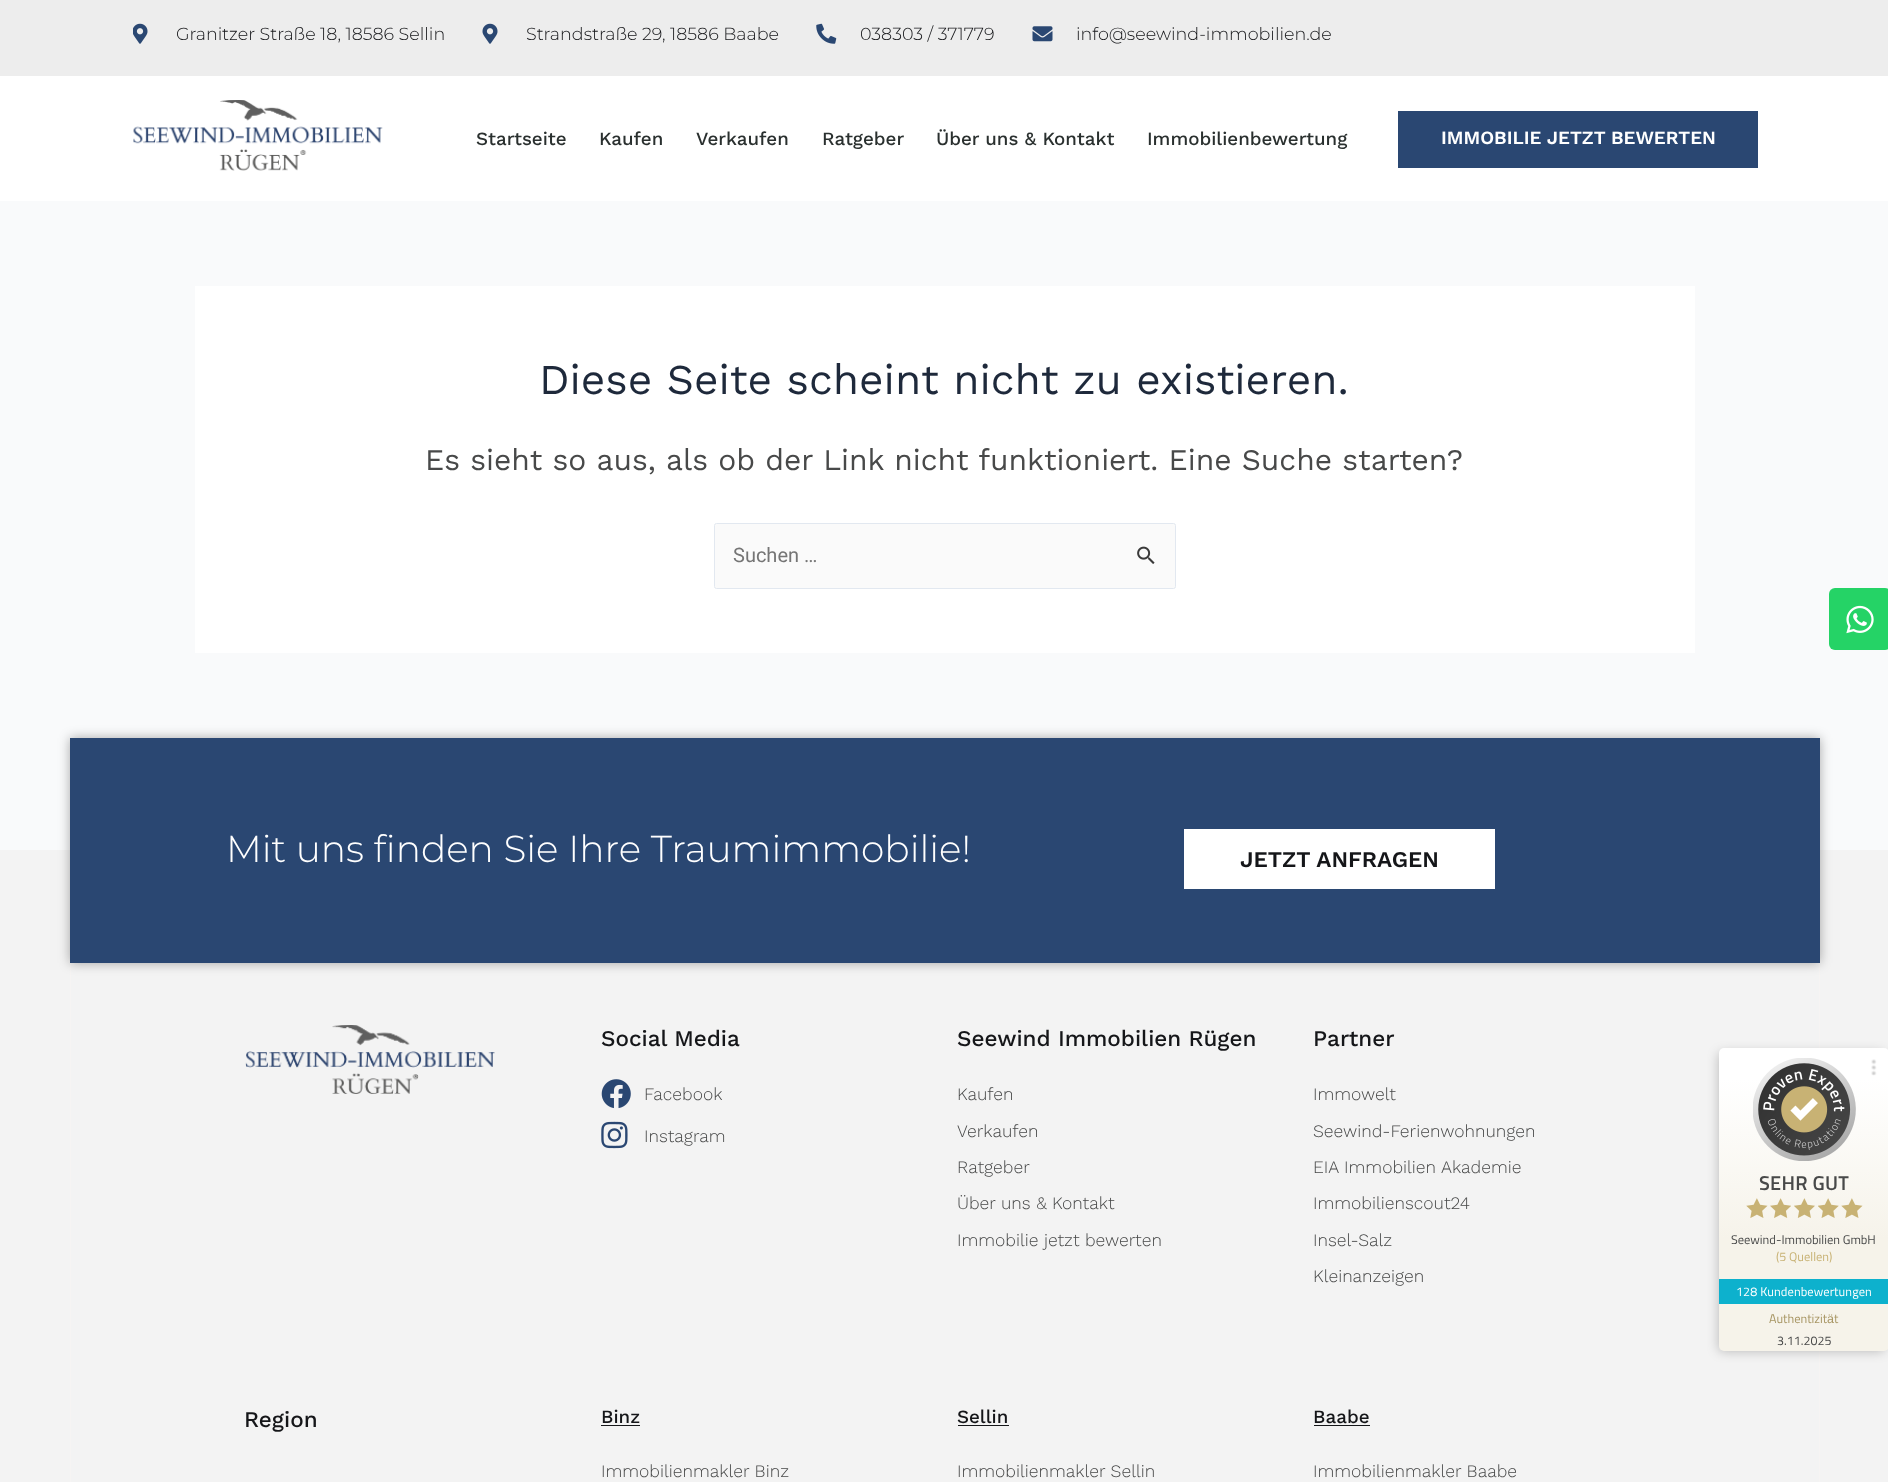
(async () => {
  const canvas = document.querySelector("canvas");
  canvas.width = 1888;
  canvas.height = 1482;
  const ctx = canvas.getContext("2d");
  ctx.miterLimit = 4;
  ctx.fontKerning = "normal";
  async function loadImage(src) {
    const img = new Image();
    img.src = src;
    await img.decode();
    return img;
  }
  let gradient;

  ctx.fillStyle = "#f9fafb";
  ctx.fillRect(0, 0, 1888, 1482);
  ctx.fillStyle = "#ededed";
  ctx.fillRect(0, 0, 1888, 76);
  ctx.drawImage(await loadImage("img/1.png"), 133, 23, 15, 21);
  ctx.drawImage(await loadImage("img/2.png"), 482, 23, 16, 21);
  ctx.drawImage(await loadImage("img/3.png"), 816, 23, 21, 21);
  ctx.drawImage(await loadImage("img/4.png"), 1032, 26, 21, 16);
  ctx.fillStyle = "#25d366";
  ctx.beginPath();
  ctx.roundRect(1829, 588, 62, 62, 6);
  ctx.fill();
  ctx.drawImage(await loadImage("img/5.png"), 1846, 605, 28, 29);
  ctx.fillStyle = "#ffffff";
  ctx.fillRect(0, 76, 1888, 125);
  ctx.drawImage(await loadImage("img/6.png"), 133, 100, 250, 71);
  ctx.fillStyle = "#2a4772";
  ctx.fillRect(1398, 111, 360, 57);
  ctx.fillStyle = "#ffffff";
  ctx.fillRect(195, 286, 1500, 367);
  ctx.fillStyle = "#fafafa";
  ctx.beginPath();
  ctx.roundRect(714.5, 523.5, 461, 65, 2);
  ctx.fill();
  ctx.strokeStyle = "#e2e8f0";
  ctx.stroke();
  ctx.drawImage(await loadImage("img/7.png"), 1137, 546, 18, 18);
  for (const [x, y, w, h, color] of [
    [0, 850, 1888, 632, "#f3f3f3"],
    [1819, 963, 1, 519, "#f6f4f3"],
    [70, 963, 1, 519, "#f6f4f3"],
  ]) {
    ctx.fillStyle = color;
    ctx.fillRect(x, y, w, h);
  }
  ctx.fillStyle = "rgba(0, 0, 0, 0.33)";
  ctx.filter = "blur(6px)";
  ctx.beginPath();
  ctx.rect(70, 738, 1750, 225);
  ctx.fill();
  ctx.filter = "none";
  ctx.fillStyle = "#2a4772";
  ctx.fillRect(70, 738, 1750, 225);
  ctx.fillStyle = "#ffffff";
  ctx.fillRect(1184, 829, 311, 60);
  ctx.drawImage(await loadImage("img/8.png"), 245, 1025, 250, 69);
  ctx.drawImage(await loadImage("img/9.png"), 601, 1079, 30, 30);
  ctx.drawImage(await loadImage("img/10.png"), 601, 1121, 27, 28);
  for (const [x, y, w, h, color] of [
    [601, 1425, 39, 1, "#151619"],
    [958, 1425, 51, 1, "#151619"],
    [1314, 1425, 56, 1, "#151619"],
  ]) {
    ctx.fillStyle = color;
    ctx.fillRect(x, y, w, h);
  }
  ctx.fillStyle = "rgba(0, 0, 0, 0.25)";
  ctx.filter = "blur(6px)";
  ctx.beginPath();
  ctx.roundRect(1719, 1053, 165, 298, 2.5);
  ctx.fill();
  ctx.filter = "none";
  gradient = ctx.createLinearGradient(1804, 1351, 1804, 1048);
  gradient.addColorStop(0.37, "#f6f3ea");
  gradient.addColorStop(0.9, "#ffffff");
  ctx.fillStyle = gradient;
  ctx.beginPath();
  ctx.roundRect(1719, 1048, 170, 303, 5);
  ctx.fill();
  ctx.drawImage(await loadImage("img/11.png"), 1753, 1058, 103, 103);
  ctx.drawImage(await loadImage("img/12.png"), 1871, 1059, 6, 17);
  ctx.drawImage(await loadImage("img/13.png"), 1746, 1198, 22, 20);
  ctx.drawImage(await loadImage("img/14.png"), 1770, 1198, 21, 20);
  ctx.drawImage(await loadImage("img/15.png"), 1794, 1198, 21, 20);
  ctx.drawImage(await loadImage("img/16.png"), 1818, 1198, 21, 20);
  ctx.drawImage(await loadImage("img/13.png"), 1841, 1198, 22, 20);
  ctx.fillStyle = "#0db1cd";
  ctx.fillRect(1719, 1279, 169, 25);
  ctx.font = "300 17.5px Montserrat";
  ctx.fillStyle = "#151619";
  for (const [text, x, y] of [
    ["Granitzer Straße 18, 18586 Sellin", 176, 40],
    ["Strandstraße 29, 18586 Baabe", 526, 40],
    ["038303 / 371779", 860, 40],
    ["info@seewind-immobilien.de", 1076, 40],
  ]) {
    ctx.fillText(text, x, y);
  }
  ctx.font = "500 18.75px Work Sans";
  ctx.fillStyle = "#2a302f";
  for (const [text, x, y] of [
    ["Startseite", 476, 145],
    ["Kaufen", 599, 145],
    ["Verkaufen", 696, 145],
    ["Ratgeber", 822, 145],
    ["Über uns & Kontakt", 936, 145],
    ["Immobilienbewertung", 1147, 145],
  ]) {
    ctx.fillText(text, x, y);
  }
  ctx.font = "600 18.75px Work Sans";
  ctx.fillStyle = "#ffffff";
  ctx.fillText("IMMOBILIE JETZT BEWERTEN", 1441, 144);
  ctx.font = "42.5px Work Sans";
  ctx.fillStyle = "#1e293b";
  ctx.fillText("Diese Seite scheint nicht zu existieren.", 539, 394);
  ctx.font = "30px Work Sans";
  ctx.fillStyle = "#484949";
  ctx.fillText("Es sieht so aus, als ob der Link nicht funktioniert. Eine Suche starten?", 425, 470);
  ctx.font = "20px Roboto";
  ctx.fillStyle = "#757575";
  ctx.fillText("Suchen …", 733, 562);
  ctx.font = "300 37.5px Montserrat";
  ctx.fillStyle = "#ffffff";
  ctx.fillText("Mit uns finden Sie Ihre Traumimmobilie!", 226, 862);
  ctx.font = "600 22.5px Work Sans";
  ctx.fillStyle = "#151619";
  ctx.fillText("JETZT ANFRAGEN", 1240, 867);
  ctx.font = "500 22.5px Work Sans";
  ctx.fillText("Social Media", 601, 1046);
  ctx.font = "300 17.5px Work Sans";
  ctx.fillStyle = "#484949";
  ctx.fillText("Facebook", 644, 1100);
  ctx.fillText("Instagram", 644, 1142);
  ctx.font = "500 22.5px Work Sans";
  ctx.fillStyle = "#151619";
  ctx.fillText("Seewind Immobilien Rügen", 957, 1046);
  ctx.font = "300 17.5px Work Sans";
  ctx.fillStyle = "#484949";
  for (const [text, x, y] of [
    ["Kaufen", 957, 1100],
    ["Verkaufen", 957, 1137],
    ["Ratgeber", 957, 1173],
    ["Über uns & Kontakt", 957, 1209],
    ["Immobilie jetzt bewerten", 957, 1246],
  ]) {
    ctx.fillText(text, x, y);
  }
  ctx.font = "500 22.5px Work Sans";
  ctx.fillStyle = "#151619";
  ctx.fillText("Partner", 1313, 1046);
  ctx.font = "300 17.5px Work Sans";
  ctx.fillStyle = "#484949";
  for (const [text, x, y] of [
    ["Immowelt", 1313, 1100],
    ["Seewind-Ferienwohnungen", 1313, 1137],
    ["EIA Immobilien Akademie", 1313, 1173],
    ["Immobilienscout24", 1313, 1209],
    ["Insel-Salz", 1313, 1246],
    ["Kleinanzeigen", 1313, 1282],
  ]) {
    ctx.fillText(text, x, y);
  }
  ctx.font = "500 22.5px Work Sans";
  ctx.fillStyle = "#151619";
  ctx.fillText("Region", 244, 1427);
  ctx.font = "500 18.75px Work Sans";
  ctx.fillText("Binz", 601, 1423);
  ctx.font = "300 17.5px Work Sans";
  ctx.fillStyle = "#484949";
  ctx.fillText("Immobilienmakler Binz", 601, 1477);
  ctx.font = "500 18.75px Work Sans";
  ctx.fillStyle = "#151619";
  ctx.fillText("Sellin", 957, 1423);
  ctx.font = "300 17.5px Work Sans";
  ctx.fillStyle = "#484949";
  ctx.fillText("Immobilienmakler Sellin", 957, 1477);
  ctx.font = "500 18.75px Work Sans";
  ctx.fillStyle = "#151619";
  ctx.fillText("Baabe", 1313, 1423);
  ctx.font = "300 17.5px Work Sans";
  ctx.fillStyle = "#484949";
  ctx.fillText("Immobilienmakler Baabe", 1313, 1477);
  ctx.letterSpacing = "0.25px";
  ctx.font = "600 20px Titillium Web";
  ctx.fillText("SEHR GUT", 1759, 1190);
  ctx.letterSpacing = "0px";
  ctx.font = "12.5px Titillium Web";
  ctx.fillText("Seewind-Immobilien GmbH", 1731, 1244);
  ctx.fillStyle = "#c8b274";
  ctx.fillText("(5 Quellen)", 1776, 1261);
  ctx.letterSpacing = "0.1px";
  ctx.fillStyle = "#ffffff";
  ctx.fillText("128 Kundenbewertungen", 1736, 1296);
  ctx.letterSpacing = "0px";
  ctx.fillStyle = "#a79563";
  ctx.fillText("Authentizit", 1769, 1323);
  ctx.font = "12.5px Liberation Sans";
  ctx.fillText("ä", 1827, 1323);
  ctx.font = "12.5px Titillium Web";
  ctx.fillText("t", 1834, 1323);
  ctx.fillStyle = "#484949";
  ctx.fillText("3.11.2025", 1777, 1345);
})();
